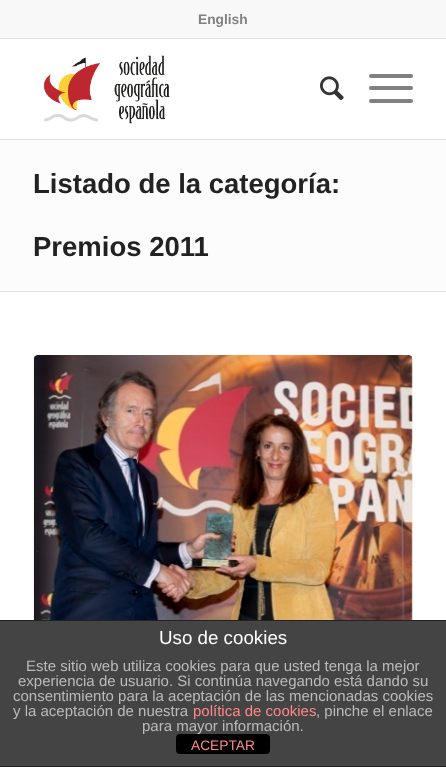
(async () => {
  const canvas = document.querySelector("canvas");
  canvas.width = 446;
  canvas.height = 767;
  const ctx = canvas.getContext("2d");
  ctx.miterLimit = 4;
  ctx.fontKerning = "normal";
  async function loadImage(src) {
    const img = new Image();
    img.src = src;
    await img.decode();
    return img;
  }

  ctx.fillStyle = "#ffffff";
  ctx.fillRect(0, 0, 446, 767);
  for (const [x, y, w, h, color] of [
    [0, 0, 446, 38, "#f8f8f8"],
    [0, 38, 446, 1, "#e1e1e1"],
    [0, 139, 446, 1, "#e1e1e1"],
  ]) {
    ctx.fillStyle = color;
    ctx.fillRect(x, y, w, h);
  }
  ctx.drawImage(await loadImage("img/1.png"), 43, 55, 127, 69);
  ctx.drawImage(await loadImage("img/2.png"), 320, 76, 24, 25);
  ctx.fillStyle = "#808080";
  ctx.beginPath();
  ctx.roundRect(369, 86, 44, 4, 2);
  ctx.fill();
  ctx.beginPath();
  ctx.roundRect(369, 74, 44, 4, 2);
  ctx.fill();
  ctx.beginPath();
  ctx.roundRect(369, 99, 44, 4, 2);
  ctx.fill();
  ctx.fillStyle = "#fcfcfc";
  ctx.fillRect(0, 140, 446, 151);
  ctx.fillStyle = "#e1e1e1";
  ctx.fillRect(0, 291, 446, 1);
  ctx.drawImage(await loadImage("img/3.png"), 33, 355, 380, 265);
  for (const [x, y, w, h, color] of [
    [0, 621, 446, 145, "#444444"],
    [0, 620, 446, 1, "#222222"],
    [0, 766, 446, 1, "#222222"],
  ]) {
    ctx.fillStyle = color;
    ctx.fillRect(x, y, w, h);
  }
  ctx.fillStyle = "#000000";
  ctx.beginPath();
  ctx.roundRect(176, 734, 94, 20, 4);
  ctx.fill();
  ctx.font = "bold 13.75px Liberation Sans";
  ctx.fillStyle = "#808080";
  ctx.fillText("English", 198, 24);
  ctx.font = "bold 27.5px Liberation Sans";
  ctx.fillStyle = "#222222";
  ctx.fillText("Listado de la categoría:", 33, 193);
  ctx.fillText("Premios 2011", 33, 256);
  ctx.font = "18.75px Liberation Sans";
  ctx.fillStyle = "#ffffff";
  ctx.fillText("Uso de cookies", 159, 644);
  ctx.font = "15px Liberation Sans";
  ctx.fillStyle = "#bbbbbb";
  for (const [text, x, y] of [
    ["Este sitio web utiliza cookies para que usted tenga la mejor", 26, 671],
    ["experiencia de usuario. Si continúa navegando está dando su", 18, 686],
    ["consentimiento para la aceptación de las mencionadas cookies", 13, 701],
    ["y la aceptación de nuestra", 13, 716],
  ]) {
    ctx.fillText(text, x, y);
  }
  ctx.fillStyle = "#ff8888";
  ctx.fillText("política de cookies", 193, 716);
  ctx.fillStyle = "#bbbbbb";
  ctx.fillText(", pinche el enlace", 316, 716);
  ctx.fillText("para mayor información.", 142, 731);
  ctx.font = "13.75px Liberation Sans";
  ctx.fillStyle = "#ff8888";
  ctx.fillText("ACEPTAR", 191, 750);
})();
